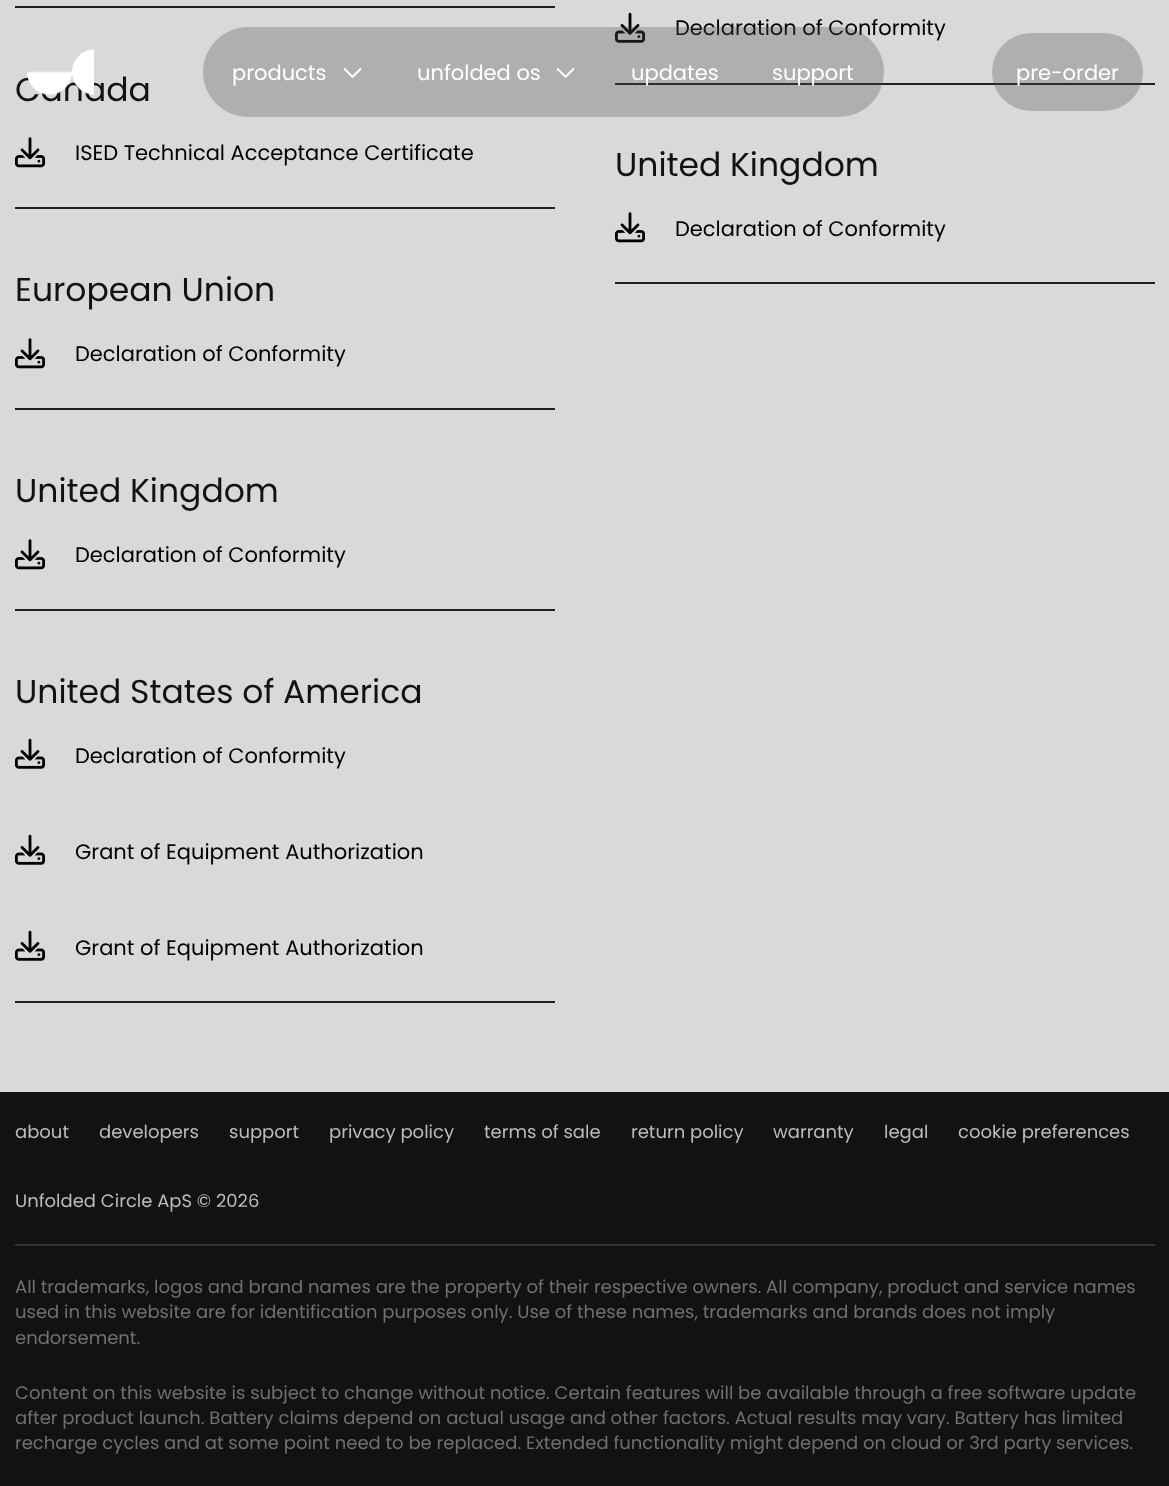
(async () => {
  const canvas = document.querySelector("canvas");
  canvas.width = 1169;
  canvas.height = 1486;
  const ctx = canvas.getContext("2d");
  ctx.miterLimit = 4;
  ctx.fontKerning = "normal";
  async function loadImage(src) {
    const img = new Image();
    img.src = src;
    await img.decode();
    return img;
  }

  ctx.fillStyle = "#d9d9d9";
  ctx.fillRect(0, 0, 1169, 1486);
  ctx.fillStyle = "#1f1f1f";
  ctx.fillRect(15, 6, 540, 2);
  ctx.drawImage(await loadImage("img/1.png"), 15, 137, 30, 31);
  ctx.fillRect(15, 207, 540, 2);
  ctx.drawImage(await loadImage("img/1.png"), 15, 338, 30, 31);
  ctx.fillRect(15, 408, 540, 2);
  ctx.drawImage(await loadImage("img/1.png"), 15, 539, 30, 31);
  ctx.fillRect(15, 609, 540, 2);
  ctx.drawImage(await loadImage("img/2.png"), 15, 738, 30, 31);
  ctx.drawImage(await loadImage("img/2.png"), 15, 834, 30, 31);
  ctx.drawImage(await loadImage("img/2.png"), 15, 930, 30, 31);
  ctx.fillRect(15, 1001, 540, 2);
  ctx.drawImage(await loadImage("img/2.png"), 615, 12, 30, 31);
  ctx.fillRect(615, 83, 540, 2);
  ctx.drawImage(await loadImage("img/1.png"), 615, 212, 30, 31);
  ctx.fillRect(615, 282, 540, 2);
  ctx.fillStyle = "rgba(81, 81, 81, 0.3)";
  ctx.beginPath();
  ctx.roundRect(992, 33, 151, 78, 39);
  ctx.fill();
  ctx.fillStyle = "#121212";
  ctx.fillRect(0, 1092, 1169, 394);
  ctx.fillStyle = "#343434";
  ctx.fillRect(15, 1244, 1140, 2);
  ctx.font = "33px Poppins";
  ctx.fillStyle = "#121212";
  ctx.fillText("Canada", 15, 101);
  ctx.font = "21px Poppins";
  ctx.fillStyle = "#000000";
  ctx.fillText("ISED Technical Acceptance Certificate", 75, 160);
  ctx.font = "33px Poppins";
  ctx.fillStyle = "#121212";
  ctx.fillText("European Union", 15, 301);
  ctx.font = "21px Poppins";
  ctx.fillStyle = "#000000";
  ctx.fillText("Declaration of Conformity", 75, 361);
  ctx.font = "33px Poppins";
  ctx.fillStyle = "#121212";
  ctx.fillText("United Kingdom", 15, 502);
  ctx.font = "21px Poppins";
  ctx.fillStyle = "#000000";
  ctx.fillText("Declaration of Conformity", 75, 562);
  ctx.font = "33px Poppins";
  ctx.fillStyle = "#121212";
  ctx.fillText("United States of America", 15, 703);
  ctx.font = "21px Poppins";
  ctx.fillStyle = "#000000";
  for (const [text, x, y] of [
    ["Declaration of Conformity", 75, 763],
    ["Grant of Equipment Authorization", 75, 859],
    ["Grant of Equipment Authorization", 75, 955],
    ["Declaration of Conformity", 675, 35],
  ]) {
    ctx.fillText(text, x, y);
  }
  ctx.font = "33px Poppins";
  ctx.fillStyle = "#121212";
  ctx.fillText("United Kingdom", 615, 176);
  ctx.font = "21px Poppins";
  ctx.fillStyle = "#000000";
  ctx.fillText("Declaration of Conformity", 675, 236);
  ctx.drawImage(await loadImage("img/3.png"), 27, 49, 68, 46);
  ctx.fillStyle = "rgba(81, 81, 81, 0.3)";
  ctx.beginPath();
  ctx.roundRect(203, 27, 681, 90, 45);
  ctx.fill();
  ctx.fillStyle = "#ffffff";
  ctx.fillText("products", 232, 80);
  ctx.drawImage(await loadImage("img/4.png"), 343, 68, 19, 10);
  ctx.fillText("unfolded os", 417, 80);
  ctx.drawImage(await loadImage("img/4.png"), 556, 68, 19, 10);
  for (const [text, x, y] of [
    ["updates", 631, 80],
    ["support", 772, 80],
    ["pre-order", 1016, 80],
  ]) {
    ctx.fillText(text, x, y);
  }
  ctx.font = "18px Poppins";
  ctx.fillStyle = "#bcbcbc";
  for (const [text, x, y] of [
    ["about", 15, 1138],
    ["developers", 99, 1138],
    ["support", 229, 1138],
    ["privacy policy", 329, 1138],
    ["terms of sale", 484, 1138],
    ["return policy", 631, 1138],
    ["warranty", 773, 1138],
    ["legal", 884, 1138],
    ["cookie preferences", 958, 1138],
    ["Unfolded Circle ApS © 2026", 15, 1207],
  ]) {
    ctx.fillText(text, x, y);
  }
  ctx.fillStyle = "#707070";
  for (const [text, x, y] of [
    ["All trademarks, logos and brand names are the property of their respective owners. All company, product and service names", 15, 1293],
    ["used in this website are for identification purposes only. Use of these names, trademarks and brands does not imply", 15, 1318],
    ["endorsement.", 15, 1344],
    ["Content on this website is subject to change without notice. Certain features will be available through a free software update", 15, 1399],
    ["after product launch. Battery claims depend on actual usage and other factors. Actual results may vary. Battery has limited", 15, 1424],
    ["recharge cycles and at some point need to be replaced. Extended functionality might depend on cloud or 3rd party services.", 15, 1449],
  ]) {
    ctx.fillText(text, x, y);
  }
})();
